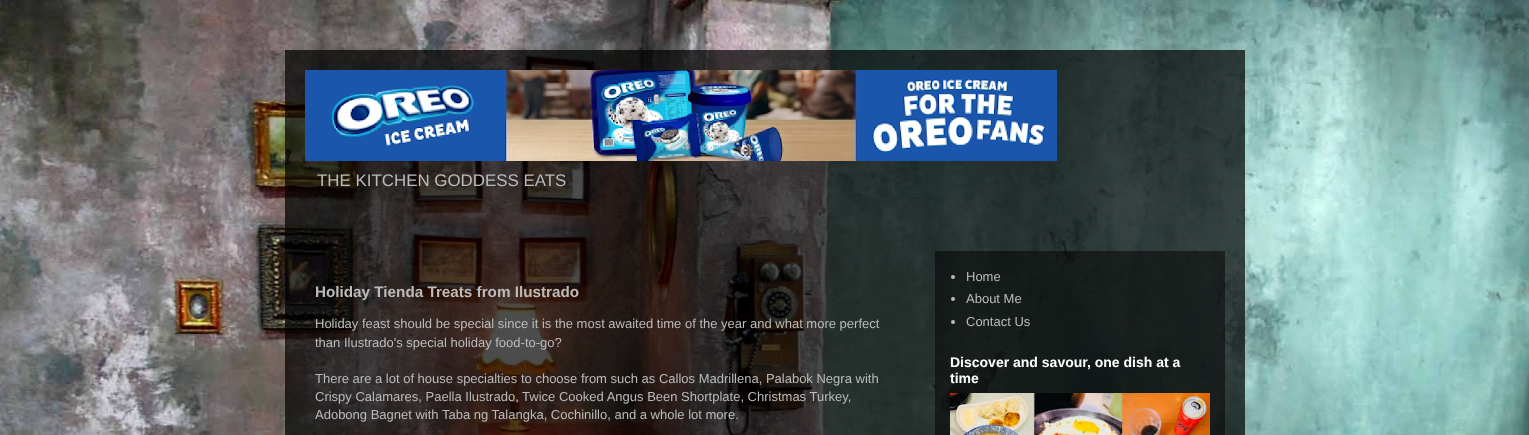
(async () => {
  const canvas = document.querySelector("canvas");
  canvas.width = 1529;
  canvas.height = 435;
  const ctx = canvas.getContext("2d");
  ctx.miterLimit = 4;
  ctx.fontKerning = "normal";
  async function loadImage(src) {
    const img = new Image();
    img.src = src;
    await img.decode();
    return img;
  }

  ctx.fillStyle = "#ffffff";
  ctx.fillRect(0, 0, 1529, 435);
  ctx.drawImage(await loadImage("img/1.png"), 0, 0, 1529, 435);
  ctx.fillStyle = "rgba(0, 0, 0, 0.7)";
  ctx.fillRect(285, 50, 960, 385);
  ctx.drawImage(await loadImage("img/2.png"), 305, 70, 752, 91);
  ctx.fillStyle = "rgba(0, 0, 0, 0.5)";
  ctx.fillRect(935, 251, 290, 184);
  ctx.fillStyle = "#bbbbbb";
  ctx.beginPath();
  ctx.arc(953, 277, 2, 0, Math.PI * 2);
  ctx.fill();
  ctx.beginPath();
  ctx.arc(953, 299, 2, 0, Math.PI * 2);
  ctx.fill();
  ctx.beginPath();
  ctx.arc(953, 322, 2, 0, Math.PI * 2);
  ctx.fill();
  ctx.drawImage(await loadImage("img/3.png"), 950, 393, 260, 42);
  ctx.font = "16.9px Liberation Sans";
  ctx.fillText("THE KITCHEN GODDESS EATS", 317, 186);
  ctx.font = "bold 15.25px Liberation Sans";
  ctx.fillText("Holiday Tienda Treats from Ilustrado", 315, 297);
  ctx.font = "13px Liberation Sans";
  for (const [text, x, y] of [
    ["Holiday feast should be special since it is the most awaited time of the year and what more perfect", 315, 328],
    ["than Ilustrado's special holiday food-to-go?", 315, 347],
    ["There are a lot of house specialties to choose from such as Callos Madrillena, Palabok Negra with", 315, 383],
    ["Crispy Calamares, Paella Ilustrado, Twice Cooked Angus Been Shortplate, Christmas Turkey,", 315, 401],
    ["Adobong Bagnet with Taba ng Talangka, Cochinillo, and a whole lot more.", 315, 419],
    ["Home", 966, 281],
    ["About Me", 966, 303],
    ["Contact Us", 966, 326],
  ]) {
    ctx.fillText(text, x, y);
  }
  ctx.font = "bold 14px Liberation Sans";
  ctx.fillStyle = "#ffffff";
  ctx.fillText("Discover and savour, one dish at a", 950, 367);
  ctx.fillText("time", 950, 383);
})();
